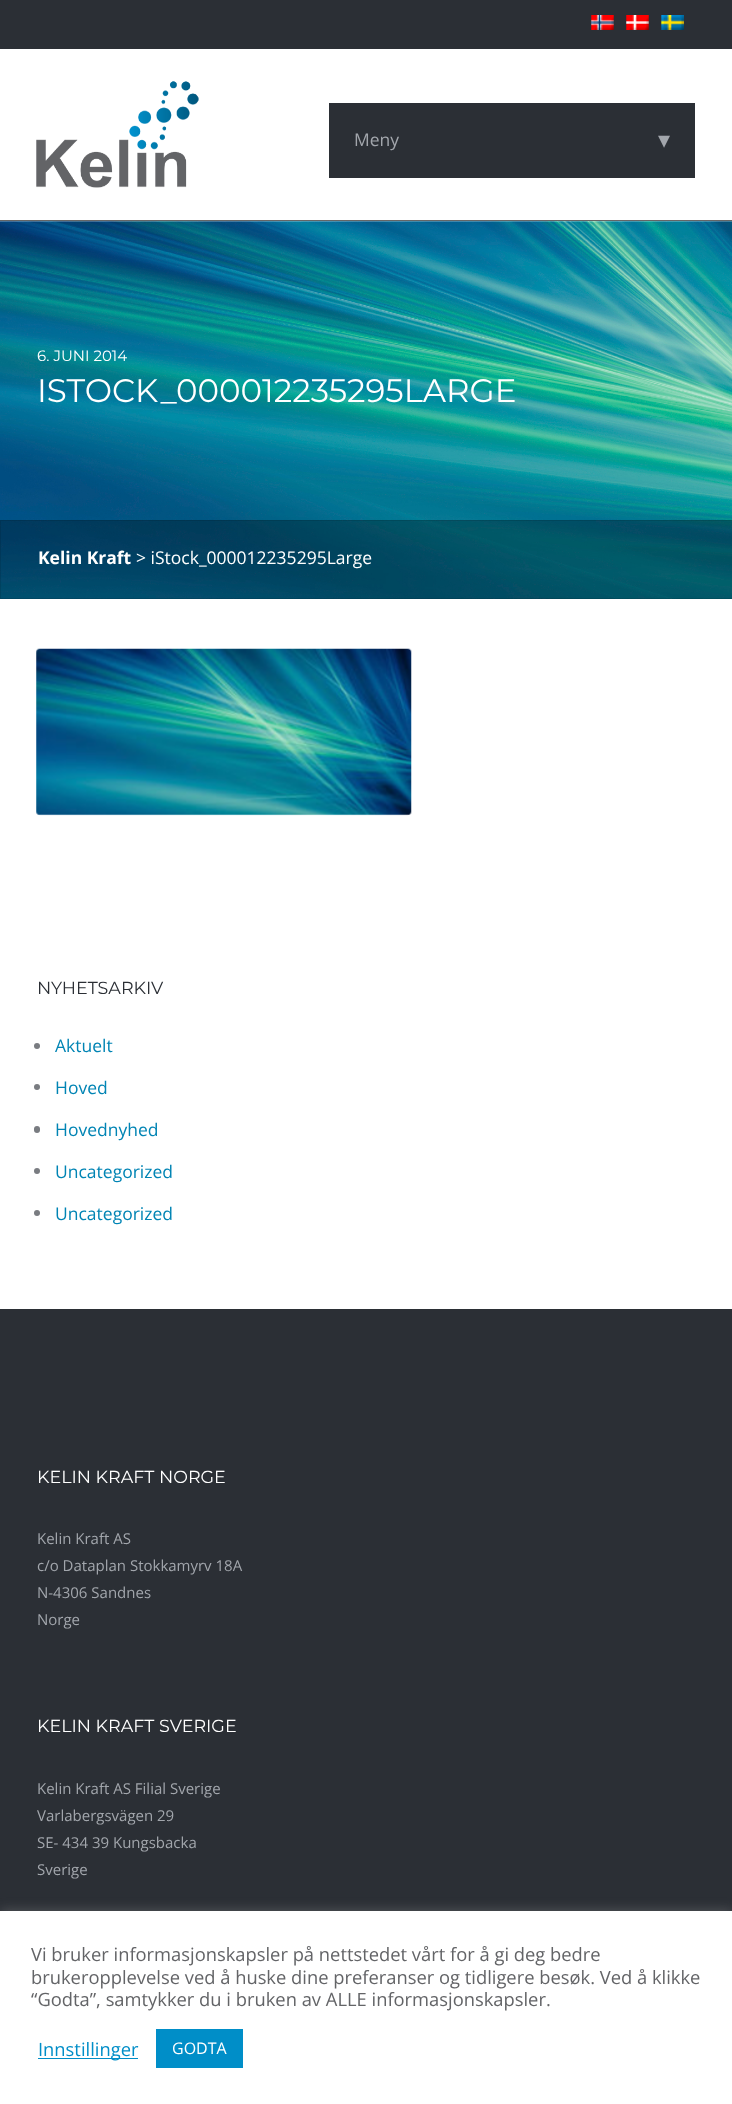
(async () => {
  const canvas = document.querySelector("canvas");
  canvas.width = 732;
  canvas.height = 2104;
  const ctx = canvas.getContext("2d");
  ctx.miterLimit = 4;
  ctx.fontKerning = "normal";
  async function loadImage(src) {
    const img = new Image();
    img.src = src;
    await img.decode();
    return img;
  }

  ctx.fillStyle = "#ffffff";
  ctx.fillRect(0, 0, 732, 2104);
  ctx.fillStyle = "#2b2f35";
  ctx.fillRect(0, 0, 732, 49);
  ctx.drawImage(await loadImage("img/1.png"), 591, 15, 23, 15);
  ctx.drawImage(await loadImage("img/2.png"), 626, 15, 23, 15);
  ctx.drawImage(await loadImage("img/3.png"), 661, 15, 23, 15);
  ctx.fillStyle = "#666666";
  ctx.fillRect(0, 220, 732, 1);
  ctx.drawImage(await loadImage("img/4.png"), 36, 81, 163, 107);
  ctx.fillStyle = "#2b2f35";
  ctx.fillRect(329, 103, 366, 75);
  ctx.drawImage(await loadImage("img/5.png"), 0, 221, 732, 378);
  ctx.fillStyle = "rgba(0, 0, 0, 0.3)";
  ctx.fillRect(0, 520, 732, 79);
  ctx.strokeStyle = "rgba(0, 0, 0, 0.1)";
  ctx.strokeRect(0.5, 520.5, 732, 78);
  ctx.drawImage(await loadImage("img/6.png"), 36, 648, 376, 168);
  ctx.fillStyle = "#797c81";
  ctx.beginPath();
  ctx.arc(37, 1046, 3, 0, Math.PI * 2);
  ctx.fill();
  ctx.beginPath();
  ctx.arc(37, 1087, 3, 0, Math.PI * 2);
  ctx.fill();
  ctx.beginPath();
  ctx.roundRect(34, 1126, 6, 7, 3);
  ctx.fill();
  ctx.beginPath();
  ctx.arc(37, 1171, 3, 0, Math.PI * 2);
  ctx.fill();
  ctx.beginPath();
  ctx.arc(37, 1213, 3, 0, Math.PI * 2);
  ctx.fill();
  ctx.fillStyle = "#2b2f35";
  ctx.fillRect(0, 1309, 732, 602);
  ctx.fillStyle = "rgba(172, 171, 171, 0.3)";
  ctx.filter = "blur(6px)";
  ctx.beginPath();
  ctx.rect(0, 1910, 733, 194);
  ctx.fill();
  ctx.filter = "none";
  for (const [x, y, w, h, color] of [
    [0, 1911, 732, 193, "#ffffff"],
    [38, 2058, 100, 1, "#008ec8"],
    [156, 2029, 87, 39, "#008ec8"],
  ]) {
    ctx.fillStyle = color;
    ctx.fillRect(x, y, w, h);
  }
  ctx.font = "17.5px Open Sans";
  ctx.fillStyle = "#a2a6ac";
  ctx.fillText("Meny", 354, 146);
  ctx.font = "24px DejaVu Sans";
  ctx.fillText("▾", 658, 148);
  ctx.font = "15px Montserrat";
  ctx.fillStyle = "#ffffff";
  ctx.fillText("6. JUNI 2014", 37, 361);
  ctx.font = "32.5px Montserrat";
  ctx.fillText("ISTOCK_000012235295LARGE", 37, 402);
  ctx.font = "bold 17.5px Open Sans";
  ctx.fillText("Kelin Kraft", 38, 564);
  ctx.font = "17.5px Open Sans";
  ctx.fillText("> iStock_000012235295Large", 136, 564);
  ctx.font = "17.5px Montserrat";
  ctx.fillStyle = "#2b2f35";
  ctx.fillText("NYHETSARKIV", 37, 994);
  ctx.font = "17.5px Open Sans";
  ctx.fillStyle = "#0084b4";
  for (const [text, x, y] of [
    ["Aktuelt", 55, 1052],
    ["Hoved", 55, 1094],
    ["Hovednyhed", 55, 1136],
    ["Uncategorized", 55, 1178],
    ["Uncategorized", 55, 1220],
  ]) {
    ctx.fillText(text, x, y);
  }
  ctx.font = "17.5px Montserrat";
  ctx.fillStyle = "#ffffff";
  ctx.fillText("KELIN KRAFT NORGE", 37, 1483);
  ctx.font = "15px Open Sans";
  ctx.fillStyle = "#a2a6ac";
  for (const [text, x, y] of [
    ["Kelin Kraft AS", 37, 1544],
    ["c/o Dataplan Stokkamyrv 18A", 37, 1571],
    ["N-4306 Sandnes", 37, 1598],
    ["Norge", 37, 1625],
  ]) {
    ctx.fillText(text, x, y);
  }
  ctx.font = "17.5px Montserrat";
  ctx.fillStyle = "#ffffff";
  ctx.fillText("KELIN KRAFT SVERIGE", 37, 1732);
  ctx.font = "15px Open Sans";
  ctx.fillStyle = "#a2a6ac";
  for (const [text, x, y] of [
    ["Kelin Kraft AS Filial Sverige", 37, 1794],
    ["Varlabergsvägen 29", 37, 1821],
    ["SE- 434 39 Kungsbacka", 37, 1848],
    ["Sverige", 37, 1875],
  ]) {
    ctx.fillText(text, x, y);
  }
  ctx.font = "18.35px Open Sans";
  ctx.fillStyle = "#636467";
  for (const [text, x, y] of [
    ["Vi bruker informasjonskapsler på nettstedet vårt for å gi deg bedre", 31, 1961],
    ["brukeropplevelse ved å huske dine preferanser og tidligere besøk. Ved å klikke", 31, 1984],
    ["“Godta”, samtykker du i bruken av ALLE informasjonskapsler.", 31, 2006],
  ]) {
    ctx.fillText(text, x, y);
  }
  ctx.fillStyle = "#008ec8";
  ctx.fillText("Innstillinger", 38, 2056);
  ctx.font = "16px Open Sans";
  ctx.fillStyle = "#ffffff";
  ctx.fillText("GODTA", 172, 2054);
})();
